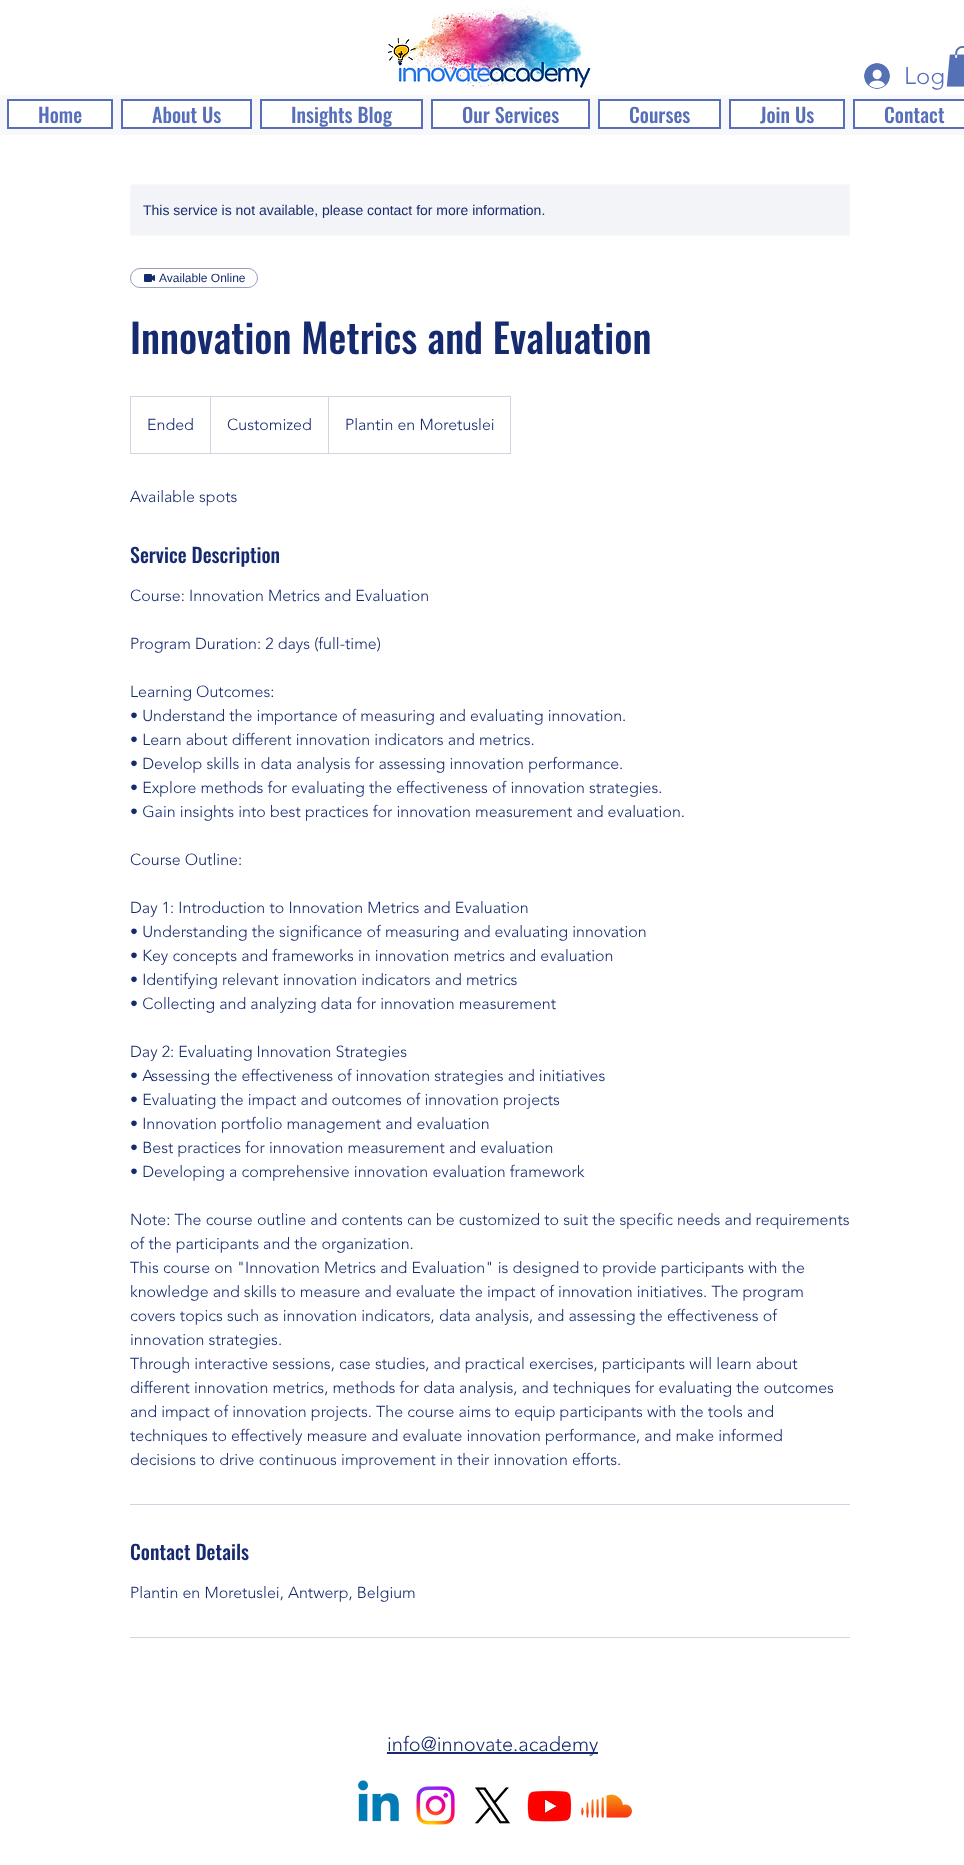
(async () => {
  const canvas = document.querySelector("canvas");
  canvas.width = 964;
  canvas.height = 1865;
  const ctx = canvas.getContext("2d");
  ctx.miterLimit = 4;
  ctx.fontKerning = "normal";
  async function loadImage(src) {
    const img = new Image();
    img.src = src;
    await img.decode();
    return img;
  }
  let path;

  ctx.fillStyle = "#ffffff";
  ctx.fillRect(0, 0, 964, 1865);
  ctx.drawImage(await loadImage("img/1.png"), 388, 6, 203, 84);
  ctx.drawImage(await loadImage("img/2.png"), 864, 63, 26, 26);
  ctx.drawImage(await loadImage("img/3.png"), 946, 46, 18, 41);
  ctx.fillStyle = "#f8f7f9";
  ctx.fillRect(0, 95, 964, 40);
  ctx.fillStyle = "#ffffff";
  ctx.beginPath();
  ctx.rect(8, 100, 104, 28);
  ctx.fill();
  ctx.strokeStyle = "#566fb8";
  ctx.lineWidth = 2;
  ctx.stroke();
  ctx.beginPath();
  ctx.rect(122, 100, 129, 28);
  ctx.fill();
  ctx.stroke();
  ctx.beginPath();
  ctx.rect(261, 100, 161, 28);
  ctx.fill();
  ctx.stroke();
  ctx.beginPath();
  ctx.rect(432, 100, 157, 28);
  ctx.fill();
  ctx.stroke();
  ctx.beginPath();
  ctx.rect(599, 100, 121, 28);
  ctx.fill();
  ctx.stroke();
  ctx.beginPath();
  ctx.rect(730, 100, 114, 28);
  ctx.fill();
  ctx.stroke();
  ctx.beginPath();
  ctx.rect(854, 100, 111, 28);
  ctx.fill();
  ctx.stroke();
  ctx.fillStyle = "#f3f4f8";
  ctx.beginPath();
  ctx.roundRect(130.5, 184.5, 719, 51, 1.5);
  ctx.fill();
  ctx.strokeStyle = "#f8f8fb";
  ctx.lineWidth = 1;
  ctx.stroke();
  ctx.beginPath();
  ctx.roundRect(130.5, 268.5, 127, 19, 9.5);
  ctx.strokeStyle = "#96a0be";
  ctx.stroke();
  ctx.drawImage(await loadImage("img/4.png"), 144, 274, 11, 8);
  ctx.strokeStyle = "#d0d5e2";
  ctx.strokeRect(130.5, 396.5, 380, 57);
  ctx.fillStyle = "#d0d5e2";
  path = new Path2D("M210 453V396L211 397V453Z");
  ctx.fill(path);
  path = new Path2D("M328 453V396L329 397V453Z");
  ctx.fill(path);
  for (const [x, y, w, h, color] of [
    [130, 1504, 720, 1, "#d0d5e2"],
    [130, 1637, 720, 1, "#d0d5e2"],
    [387, 1752, 211, 2, "#162b6f"],
  ]) {
    ctx.fillStyle = color;
    ctx.fillRect(x, y, w, h);
  }
  ctx.drawImage(await loadImage("img/5.png"), 358, 1780, 41, 42);
  ctx.drawImage(await loadImage("img/6.png"), 416, 1786, 39, 39);
  ctx.drawImage(await loadImage("img/7.png"), 475, 1787, 35, 37);
  ctx.drawImage(await loadImage("img/8.png"), 527, 1790, 45, 32);
  ctx.drawImage(await loadImage("img/9.png"), 581, 1794, 51, 24);
  ctx.font = "300 24px 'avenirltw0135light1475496'";
  ctx.fillStyle = "#566fb8";
  ctx.fillText("Log", 904, 84);
  ctx.font = "500 20px Oswald";
  for (const [text, x, y] of [
    ["Home", 38, 123],
    ["About Us", 152, 123],
    ["Insights Blog", 291, 123],
    ["Our Services", 462, 123],
    ["Courses", 629, 123],
    ["Join Us", 760, 123],
    ["Contact", 884, 123],
  ]) {
    ctx.fillText(text, x, y);
  }
  ctx.font = "14px Liberation Sans";
  ctx.fillStyle = "#162b6f";
  ctx.fillText("This service is not available, please contact for more information.", 143, 215);
  ctx.font = "12px Liberation Sans";
  ctx.fillText("Available Online", 159, 282);
  ctx.font = "500 40px Oswald";
  ctx.fillText("Innovation Metrics and Evaluation", 130, 354);
  ctx.font = "300 16px 'avenirltw0135light1475496'";
  for (const [text, x, y] of [
    ["Ended", 147, 430],
    ["Customized", 227, 430],
    ["Plantin en Moretuslei", 345, 430],
    ["Available spots", 130, 502],
  ]) {
    ctx.fillText(text, x, y);
  }
  ctx.font = "500 20px Oswald";
  ctx.fillText("Service Description", 130, 563);
  ctx.font = "300 16px 'avenirltw0135light1475496'";
  for (const [text, x, y] of [
    ["Course: Innovation Metrics and Evaluation", 130, 601],
    ["Program Duration: 2 days (full-time)", 130, 649],
    ["Learning Outcomes:", 130, 697],
    ["• Understand the importance of measuring and evaluating innovation.", 130, 721],
    ["• Learn about different innovation indicators and metrics.", 130, 745],
    ["• Develop skills in data analysis for assessing innovation performance.", 130, 769],
    ["• Explore methods for evaluating the effectiveness of innovation strategies.", 130, 793],
    ["• Gain insights into best practices for innovation measurement and evaluation.", 130, 817],
    ["Course Outline:", 130, 865],
    ["Day 1: Introduction to Innovation Metrics and Evaluation", 130, 913],
    ["• Understanding the significance of measuring and evaluating innovation", 130, 937],
    ["• Key concepts and frameworks in innovation metrics and evaluation", 130, 961],
    ["• Identifying relevant innovation indicators and metrics", 130, 985],
    ["• Collecting and analyzing data for innovation measurement", 130, 1009],
    ["Day 2: Evaluating Innovation Strategies", 130, 1057],
    ["• Assessing the effectiveness of innovation strategies and initiatives", 130, 1081],
    ["• Evaluating the impact and outcomes of innovation projects", 130, 1105],
    ["• Innovation portfolio management and evaluation", 130, 1129],
    ["• Best practices for innovation measurement and evaluation", 130, 1153],
    ["• Developing a comprehensive innovation evaluation framework", 130, 1177],
    ["Note: The course outline and contents can be customized to suit the specific needs and requirements", 130, 1225],
    ["of the participants and the organization.", 130, 1249],
    ["This course on \"Innovation Metrics and Evaluation\" is designed to provide participants with the", 130, 1273],
    ["knowledge and skills to measure and evaluate the impact of innovation initiatives. The program", 130, 1297],
    ["covers topics such as innovation indicators, data analysis, and assessing the effectiveness of", 130, 1321],
    ["innovation strategies.", 130, 1345],
    ["Through interactive sessions, case studies, and practical exercises, participants will learn about", 130, 1369],
    ["different innovation metrics, methods for data analysis, and techniques for evaluating the outcomes", 130, 1393],
    ["and impact of innovation projects. The course aims to equip participants with the tools and", 130, 1417],
    ["techniques to effectively measure and evaluate innovation performance, and make informed", 130, 1441],
    ["decisions to drive continuous improvement in their innovation efforts.", 130, 1465],
  ]) {
    ctx.fillText(text, x, y);
  }
  ctx.font = "500 20px Oswald";
  ctx.fillText("Contact Details", 130, 1560);
  ctx.font = "300 16px 'avenirltw0135light1475496'";
  ctx.fillText("Plantin en Moretuslei, Antwerp, Belgium", 130, 1598);
  ctx.font = "300 20px 'avenirltw0135light1475496'";
  ctx.fillText("info@innovate.academy", 387, 1751);
})();
